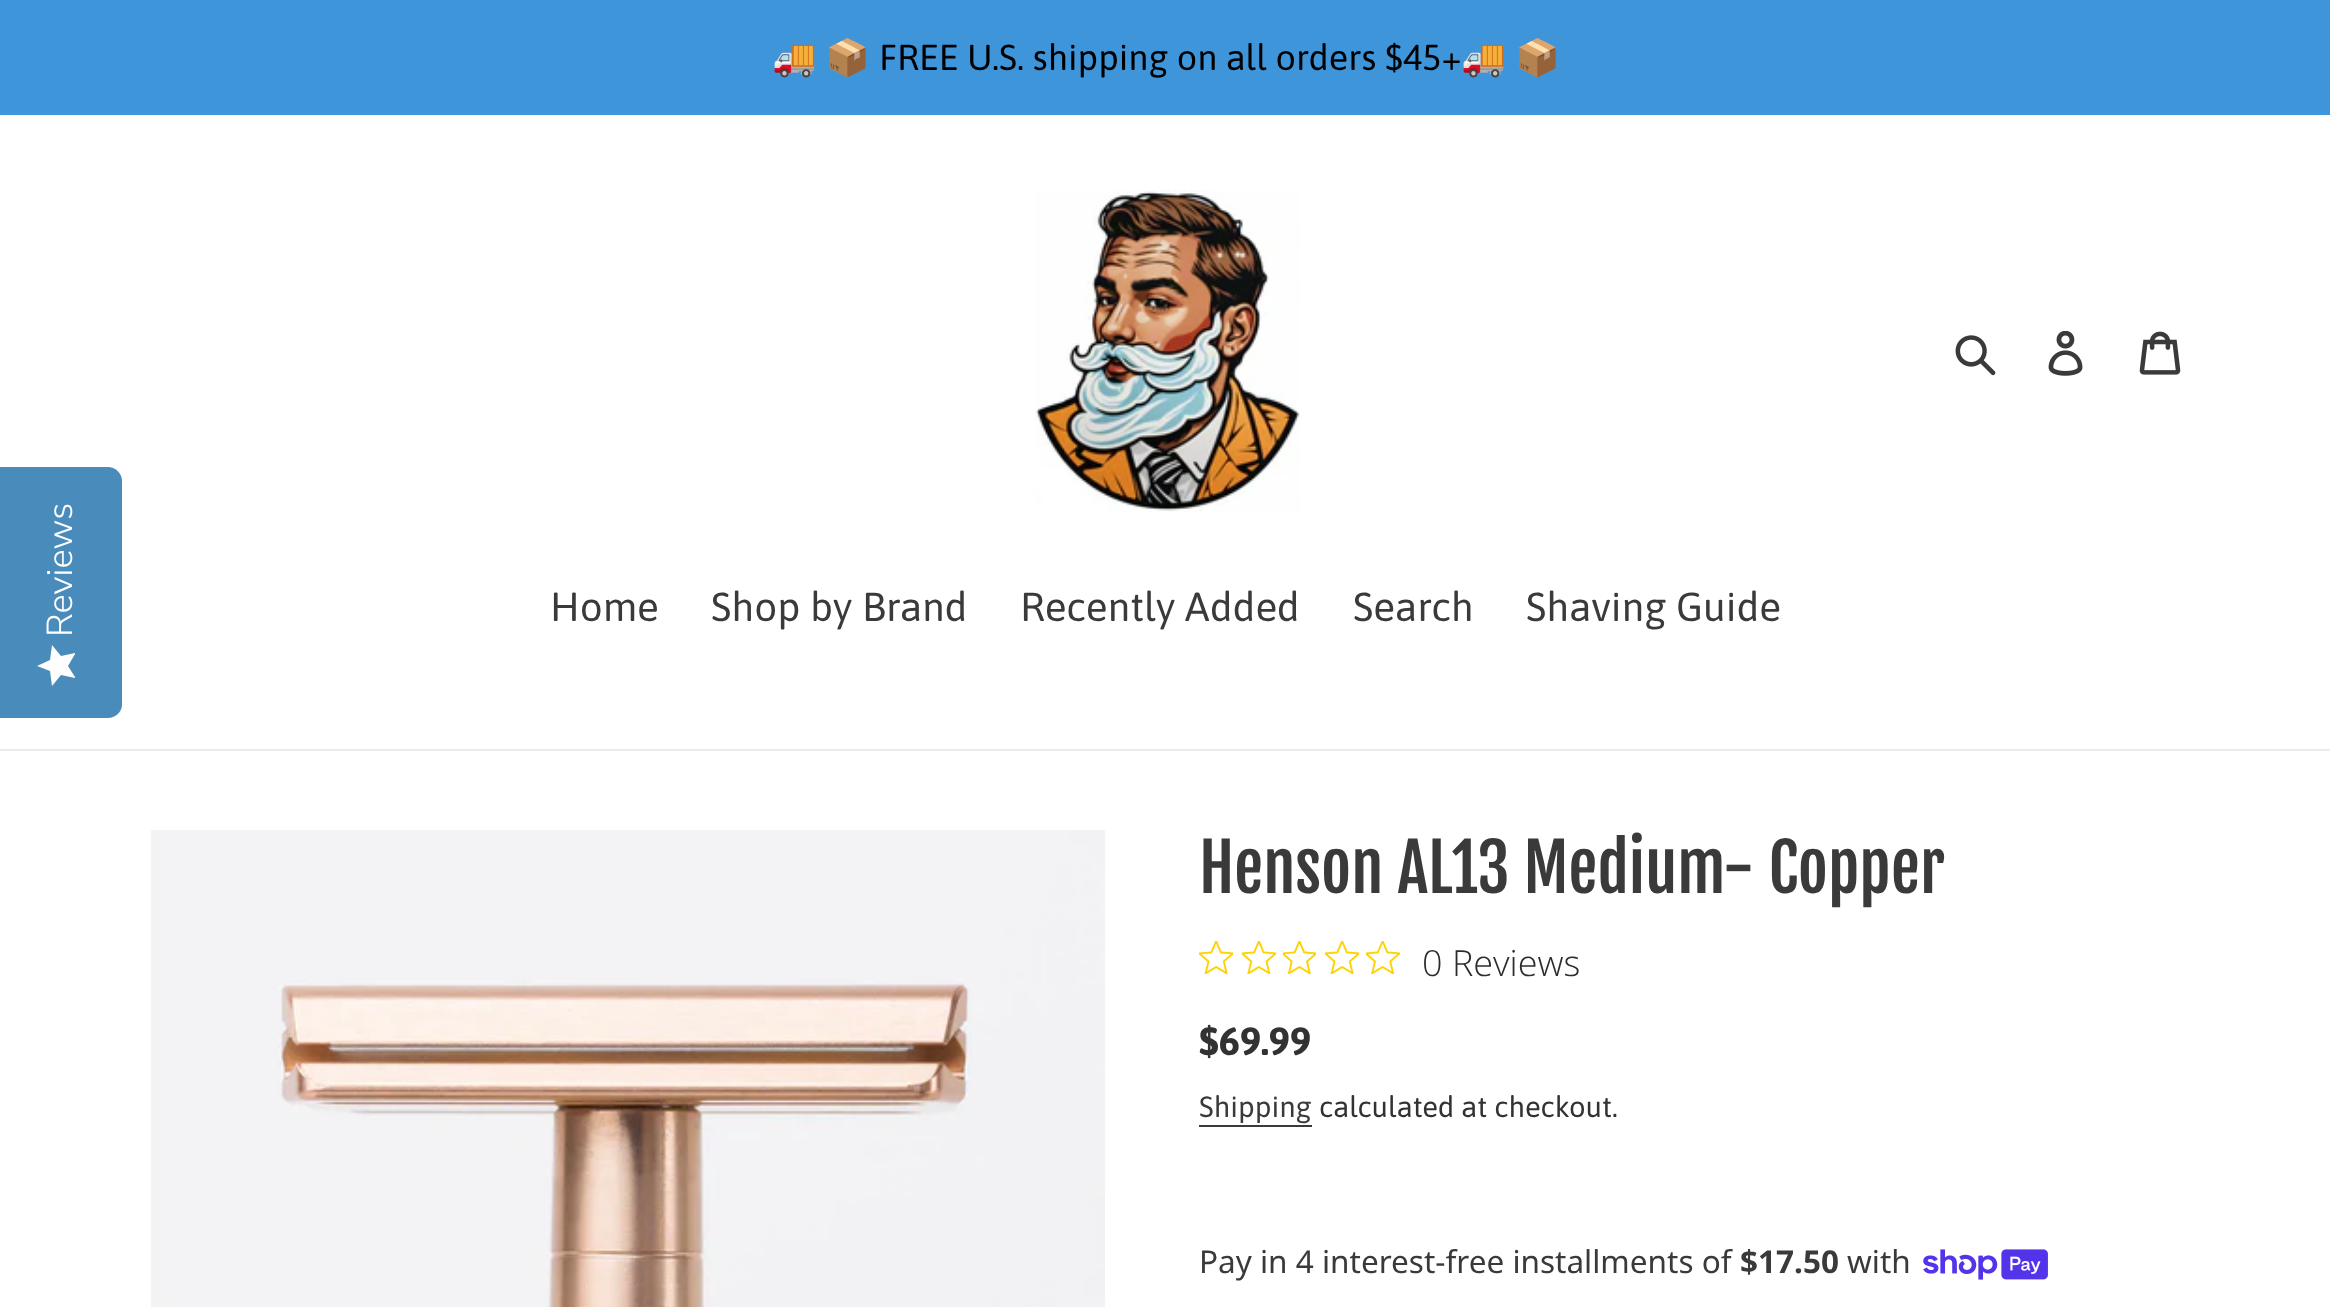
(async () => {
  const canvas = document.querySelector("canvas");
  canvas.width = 2330;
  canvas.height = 1307;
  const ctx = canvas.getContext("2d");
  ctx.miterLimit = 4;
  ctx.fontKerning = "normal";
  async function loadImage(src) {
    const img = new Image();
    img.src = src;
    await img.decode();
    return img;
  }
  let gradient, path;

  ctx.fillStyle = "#ffffff";
  ctx.fillRect(0, 0, 2330, 1307);
  ctx.fillStyle = "#498cbc";
  path = new Path2D("M0 718V467H108C115 467 122 473 122 481V705C122 712 115 718 108 718Z");
  ctx.fill(path);
  gradient = ctx.createLinearGradient(37, 686, 37, 645);
  gradient.addColorStop(1, "#fefefe");
  gradient.addColorStop(1, "#eaeaea");
  ctx.fillStyle = gradient;
  path = new Path2D("M68 666L75 677V678L61 675L52 686L50 671L37 666L50 660L52 645L61 656L75 653V654Z");
  ctx.fill(path);
  ctx.fillStyle = "#3f95da";
  ctx.fillRect(0, 0, 2330, 115);
  ctx.drawImage(await loadImage("img/1.png"), 1035, 190, 265, 322);
  ctx.drawImage(await loadImage("img/2.png"), 1955, 335, 41, 41);
  ctx.drawImage(await loadImage("img/3.png"), 2048, 331, 35, 45);
  ctx.drawImage(await loadImage("img/4.png"), 2139, 331, 42, 44);
  ctx.fillStyle = "#ebebeb";
  ctx.fillRect(0, 749, 2330, 2);
  ctx.drawImage(await loadImage("img/5.png"), 151, 830, 954, 477);
  ctx.drawImage(await loadImage("img/6.png"), 1199, 941, 34, 33);
  ctx.drawImage(await loadImage("img/7.png"), 1242, 941, 34, 33);
  ctx.drawImage(await loadImage("img/8.png"), 1283, 941, 33, 33);
  ctx.drawImage(await loadImage("img/6.png"), 1325, 941, 34, 33);
  ctx.drawImage(await loadImage("img/9.png"), 1366, 941, 34, 33);
  ctx.fillStyle = "#3a3a3a";
  ctx.fillRect(1199, 1125, 113, 2);
  ctx.drawImage(await loadImage("img/10.png"), 1923, 1249, 125, 31);
  ctx.font = "300 36px Nunito Sans";
  ctx.fillStyle = "#fefefe";
  ctx.save();
  ctx.translate(72, 637);
  ctx.rotate(-90 * Math.PI / 180);
  ctx.fillText("Reviews", 0, 0);
  ctx.restore();
  ctx.font = "36px Noto Color Emoji";
  ctx.fillStyle = "#000000";
  ctx.fillText("🚚", 772, 70);
  ctx.fillText("📦", 825, 70);
  ctx.font = "36px Asap";
  ctx.fillText("FREE U.S. shipping on all orders $45+", 879, 70);
  ctx.font = "36px Noto Color Emoji";
  ctx.fillText("🚚", 1461, 70);
  ctx.fillText("📦", 1515, 70);
  ctx.font = "40.5px Asap";
  ctx.fillStyle = "#3a3a3a";
  for (const [text, x, y] of [
    ["Home", 550, 621],
    ["Shop by Brand", 711, 621],
    ["Recently Added", 1020, 621],
    ["Search", 1353, 621],
    ["Shaving Guide", 1526, 621],
  ]) {
    ctx.fillText(text, x, y);
  }
  ctx.font = "65.25px Fjalla One";
  ctx.fillText("Henson AL13 Medium- Copper", 1199, 893);
  ctx.font = "300 36px Open Sans";
  ctx.fillStyle = "#2c2c2c";
  ctx.fillText("0 Reviews", 1422, 976);
  ctx.font = "bold 39.5px Asap";
  ctx.fillStyle = "#333232";
  ctx.fillText("$69.99", 1199, 1055);
  ctx.font = "29.25px Asap";
  ctx.fillStyle = "#3a3a3a";
  ctx.fillText("Shipping", 1199, 1117);
  ctx.fillStyle = "#333232";
  ctx.fillText("calculated at checkout.", 1319, 1117);
  ctx.font = "31.5px Noto Sans";
  ctx.fillStyle = "#3a3a3a";
  ctx.fillText("Pay in 4 interest-free installments of", 1199, 1273);
  ctx.font = "bold 31.5px Noto Sans";
  ctx.fillText("$17.50", 1740, 1273);
  ctx.font = "31.5px Noto Sans";
  ctx.fillText("with", 1847, 1273);
})();
